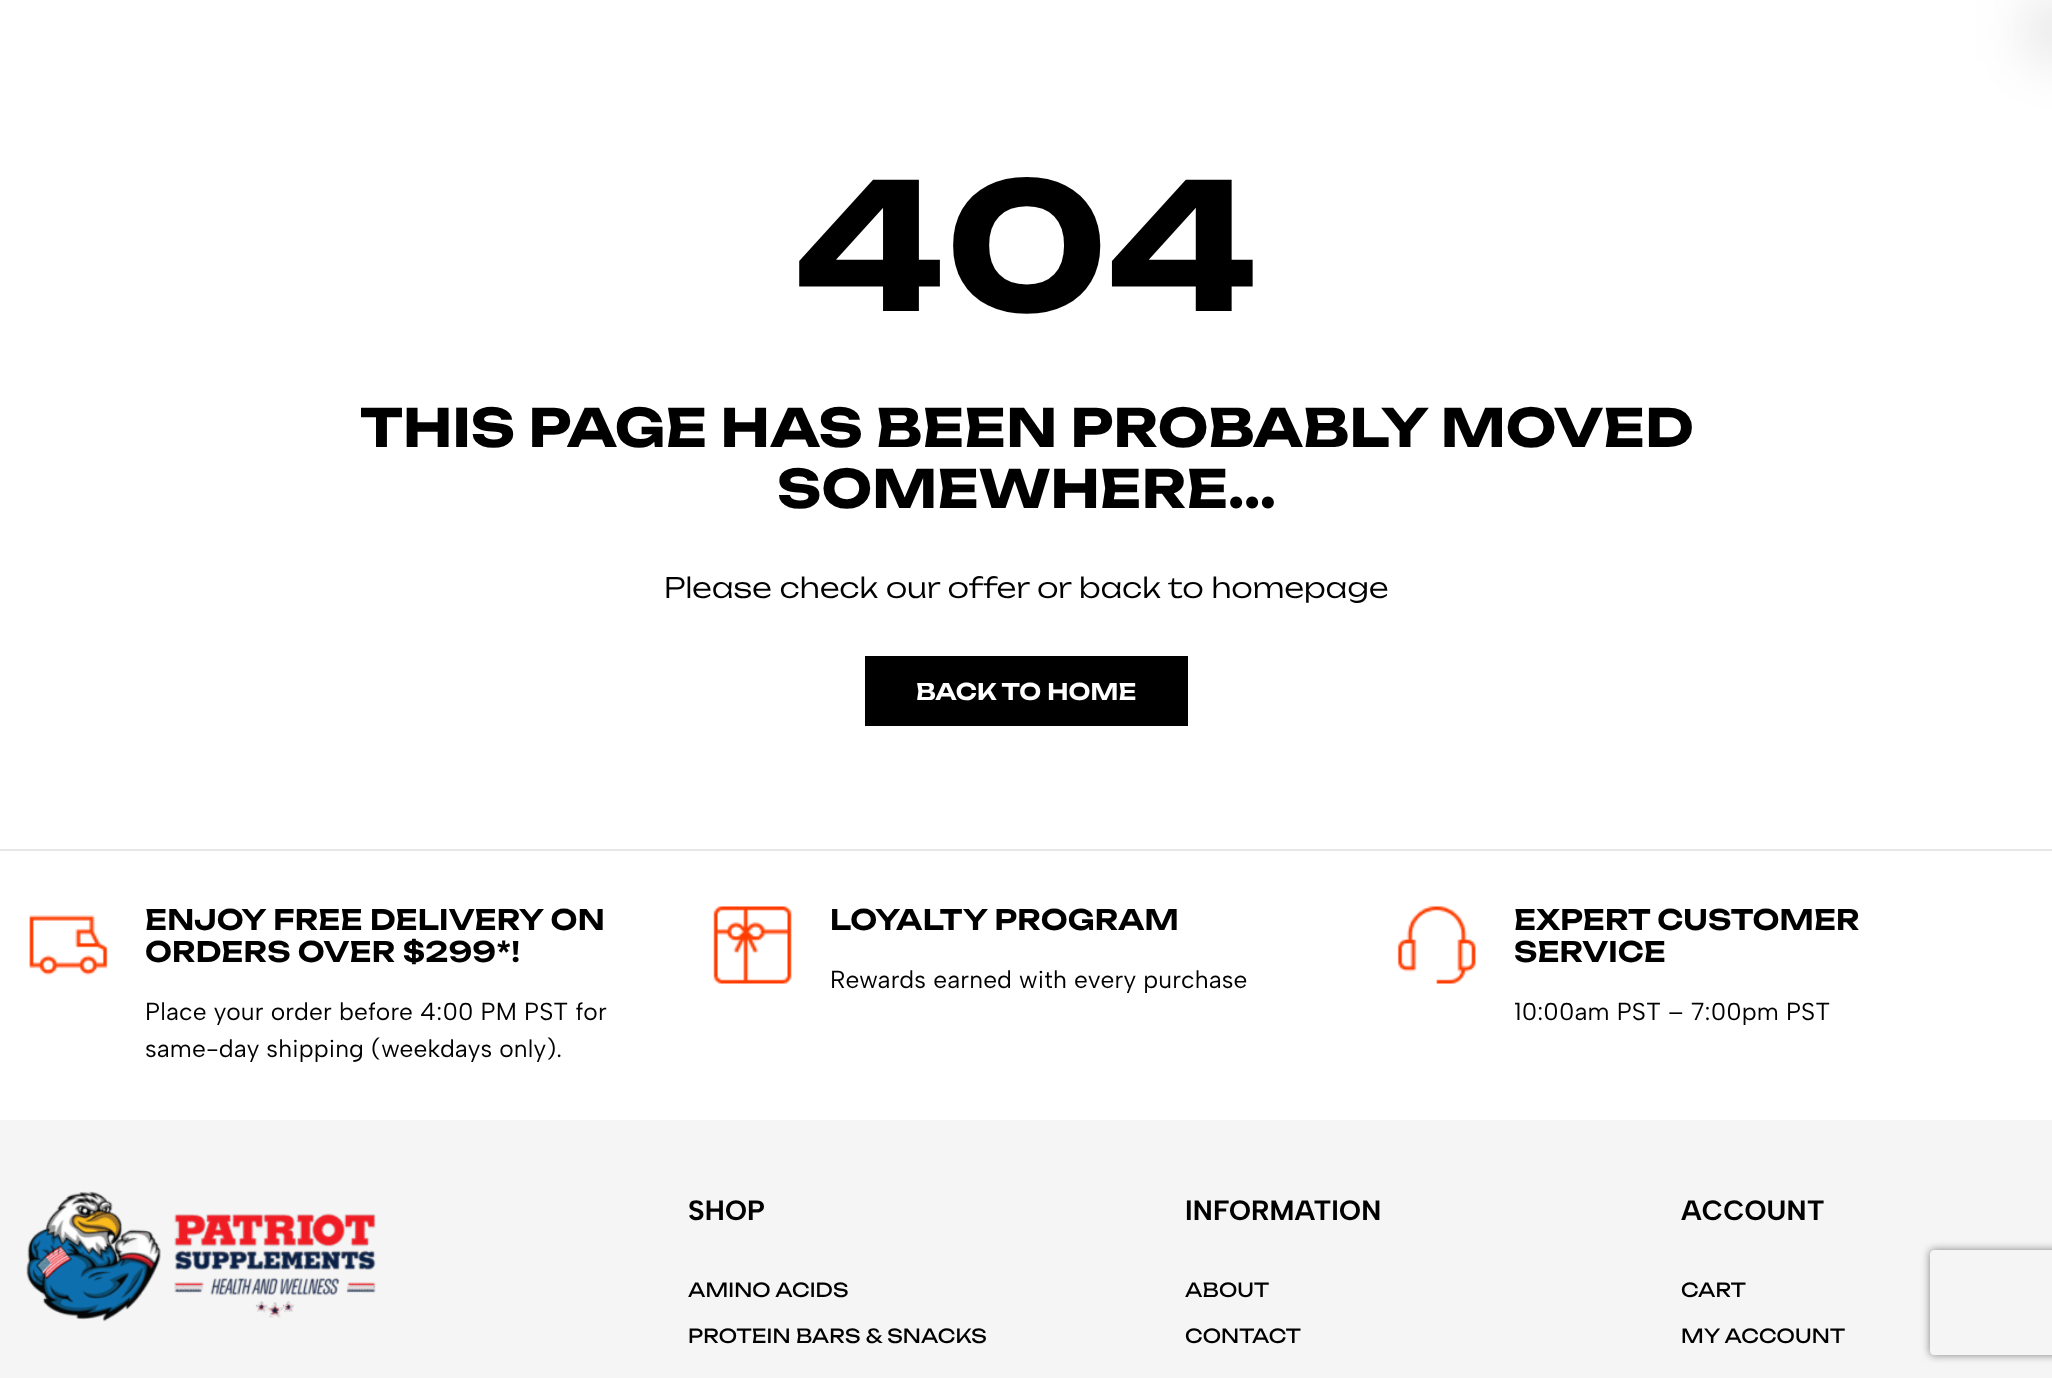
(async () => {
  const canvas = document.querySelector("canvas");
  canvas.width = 2052;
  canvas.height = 1378;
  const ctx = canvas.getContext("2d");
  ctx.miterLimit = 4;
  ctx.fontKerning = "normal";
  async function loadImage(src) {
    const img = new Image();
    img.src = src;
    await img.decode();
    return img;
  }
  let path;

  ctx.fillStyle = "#ffffff";
  ctx.fillRect(0, 0, 2052, 1378);
  ctx.fillStyle = "rgba(0, 0, 0, 0.1)";
  ctx.filter = "blur(26px)";
  ctx.beginPath();
  ctx.rect(2027, 0, 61, 61);
  ctx.fill();
  ctx.filter = "none";
  ctx.fillStyle = "#000000";
  ctx.fillRect(865, 656, 323, 70);
  ctx.fillStyle = "#e6e6e6";
  ctx.fillRect(0, 849, 2052, 2);
  ctx.drawImage(await loadImage("img/1.png"), 29, 915, 79, 61);
  ctx.drawImage(await loadImage("img/2.png"), 713, 906, 79, 78);
  ctx.drawImage(await loadImage("img/3.png"), 1397, 906, 79, 78);
  ctx.fillStyle = "#f5f5f5";
  ctx.fillRect(0, 1120, 2052, 258);
  ctx.drawImage(await loadImage("img/4.png"), 26, 1191, 350, 131);
  ctx.save();
  path = new Path2D("M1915 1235H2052V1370H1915ZM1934 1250H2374C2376 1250 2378 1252 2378 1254V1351C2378 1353 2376 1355 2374 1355H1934C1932 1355 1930 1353 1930 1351V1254C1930 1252 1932 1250 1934 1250Z");
  ctx.clip(path, "evenodd");
  ctx.fillStyle = "#808080";
  ctx.filter = "blur(4.5px)";
  ctx.beginPath();
  ctx.roundRect(1930, 1250, 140, 105, 4);
  ctx.fill();
  ctx.filter = "none";
  ctx.restore();
  ctx.letterSpacing = "0.15px";
  ctx.font = "bold 175px Unbounded";
  ctx.fillStyle = "#000000";
  ctx.fillText("404", 795, 311);
  ctx.font = "bold 52.5px Unbounded";
  ctx.fillText("THIS PAGE HAS BEEN PROBABLY MOVED", 360, 447);
  ctx.fillText("SOMEWHERE...", 777, 508);
  ctx.font = "300 28px Unbounded";
  ctx.fillText("Please check our offer or back to homepage", 664, 598);
  ctx.font = "600 22.75px Unbounded";
  ctx.fillStyle = "#ffffff";
  ctx.fillText("BACK TO HOME", 916, 700);
  ctx.font = "600 28px Unbounded";
  ctx.fillStyle = "#000000";
  ctx.fillText("ENJOY FREE DELIVERY ON", 145, 930);
  ctx.fillText("ORDERS OVER $299*!", 145, 962);
  ctx.font = "24.5px Albert Sans";
  ctx.fillText("Place your order before 4:00 PM PST for", 145, 1020);
  ctx.fillText("same-day shipping (weekdays only).", 145, 1057);
  ctx.font = "600 28px Unbounded";
  ctx.fillText("LOYALTY PROGRAM", 830, 930);
  ctx.font = "24.5px Albert Sans";
  ctx.fillText("Rewards earned with every purchase", 830, 988);
  ctx.font = "600 28px Unbounded";
  ctx.fillText("EXPERT CUSTOMER", 1514, 930);
  ctx.fillText("SERVICE", 1514, 962);
  ctx.font = "24.5px Albert Sans";
  ctx.fillText("10:00am PST – 7:00pm PST", 1514, 1020);
  ctx.font = "bold 28px Albert Sans";
  ctx.fillText("SHOP", 688, 1220);
  ctx.font = "19.25px Unbounded";
  ctx.fillText("AMINO ACIDS", 688, 1297);
  ctx.fillText("PROTEIN BARS & SNACKS", 688, 1343);
  ctx.font = "bold 28px Albert Sans";
  ctx.fillText("INFORMATION", 1185, 1220);
  ctx.font = "19.25px Unbounded";
  ctx.fillText("ABOUT", 1185, 1297);
  ctx.fillText("CONTACT", 1185, 1343);
  ctx.font = "bold 28px Albert Sans";
  ctx.fillText("ACCOUNT", 1681, 1220);
  ctx.font = "19.25px Unbounded";
  ctx.fillText("CART", 1681, 1297);
  ctx.fillText("MY ACCOUNT", 1681, 1343);
})();
